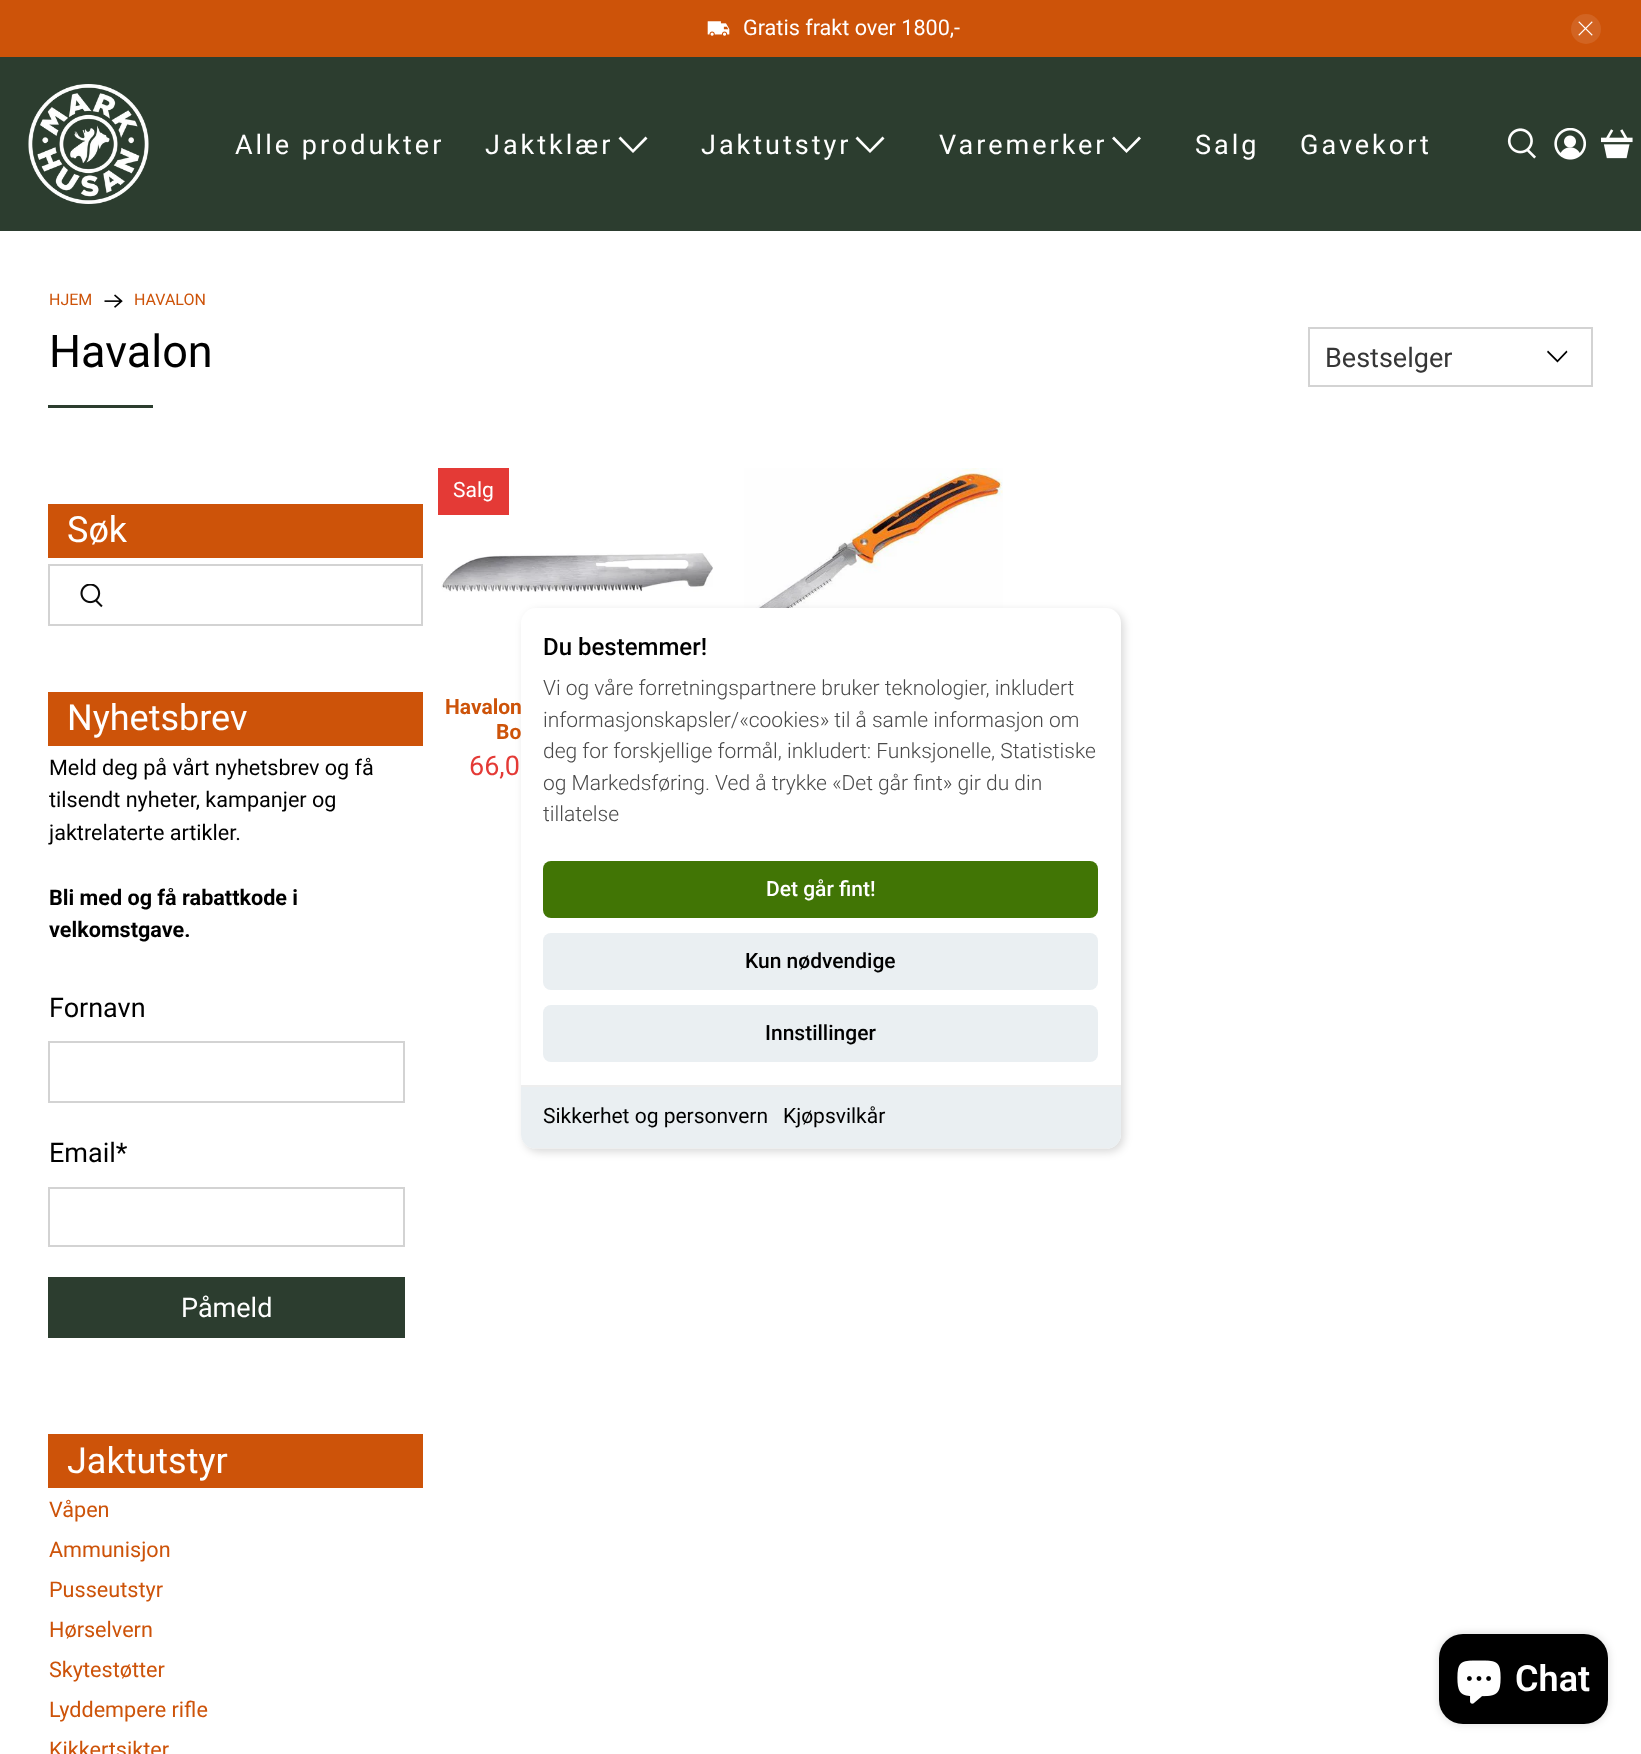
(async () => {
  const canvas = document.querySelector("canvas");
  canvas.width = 1641;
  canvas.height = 1754;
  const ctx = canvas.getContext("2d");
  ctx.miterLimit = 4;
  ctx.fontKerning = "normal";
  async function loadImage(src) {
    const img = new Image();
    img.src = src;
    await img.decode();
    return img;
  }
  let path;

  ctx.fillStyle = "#ffffff";
  ctx.fillRect(0, 0, 1641, 1754);
  ctx.fillStyle = "#cd5309";
  ctx.fillRect(0, 0, 1641, 57);
  ctx.drawImage(await loadImage("img/1.png"), 707, 21, 23, 15);
  ctx.fillStyle = "#d26422";
  ctx.beginPath();
  ctx.arc(1586, 29, 15, 0, Math.PI * 2);
  ctx.fill();
  ctx.drawImage(await loadImage("img/2.png"), 1578, 21, 15, 15);
  ctx.fillStyle = "#2c3d2f";
  ctx.fillRect(0, 57, 1641, 174);
  ctx.drawImage(await loadImage("img/3.png"), 28, 84, 121, 120);
  ctx.fillStyle = "#ffffff";
  path = new Path2D("M633 153L618.5 138.5L620.5 136.5L633 149.5L645.5 136.5L647.5 138.5Z");
  ctx.fill(path);
  path = new Path2D("M870 153L855.5 138.5L857.5 136.5L870 149.5L882.5 136.5L884.5 138.5Z");
  ctx.fill(path);
  path = new Path2D("M1126.5 153L1112 138.5L1114 136.5L1126.5 149.5L1139 136.5L1141 138.5Z");
  ctx.fill(path);
  ctx.drawImage(await loadImage("img/4.png"), 1507, 128, 29, 31);
  ctx.drawImage(await loadImage("img/5.png"), 1554, 128, 32, 32);
  ctx.drawImage(await loadImage("img/6.png"), 1601, 129, 32, 30);
  ctx.drawImage(await loadImage("img/7.png"), 104, 294, 19, 14);
  ctx.fillStyle = "#2c3d2f";
  ctx.fillRect(48, 405, 105, 3);
  ctx.strokeStyle = "#d3d3d3";
  ctx.lineWidth = 2;
  ctx.strokeRect(1309, 328, 283, 58);
  ctx.fillStyle = "#000000";
  path = new Path2D("M1557.5 362.5L1547 352L1548 350.5L1557.5 360L1566.5 350.5L1567.5 352Z");
  ctx.fill(path);
  ctx.fillStyle = "#cd5309";
  ctx.fillRect(48, 504, 375, 54);
  ctx.strokeRect(49, 565, 373, 60);
  ctx.drawImage(await loadImage("img/8.png"), 80, 584, 23, 24);
  ctx.fillRect(48, 692, 375, 54);
  ctx.strokeRect(49, 1042, 355, 60);
  ctx.strokeRect(49, 1188, 355, 58);
  for (const [x, y, w, h, color] of [
    [48, 1277, 357, 61, "#2c3d2f"],
    [48, 1434, 375, 54, "#cd5309"],
    [438, 468, 71, 47, "#e43a36"],
  ]) {
    ctx.fillStyle = color;
    ctx.fillRect(x, y, w, h);
  }
  ctx.drawImage(await loadImage("img/9.png"), 441, 553, 272, 39);
  ctx.drawImage(await loadImage("img/10.png"), 744, 468, 259, 140);
  ctx.fillStyle = "rgba(0, 0, 0, 0.15)";
  ctx.filter = "blur(4.5px)";
  ctx.beginPath();
  ctx.roundRect(524, 611, 600, 541, 15);
  ctx.fill();
  ctx.filter = "none";
  ctx.fillStyle = "#ffffff";
  ctx.beginPath();
  ctx.roundRect(521, 608, 600, 541, 15);
  ctx.fill();
  ctx.fillStyle = "#417505";
  ctx.beginPath();
  ctx.roundRect(543, 861, 555, 57, 8);
  ctx.fill();
  ctx.fillStyle = "#eaeff2";
  ctx.beginPath();
  ctx.roundRect(543, 933, 555, 57, 8);
  ctx.fill();
  ctx.beginPath();
  ctx.roundRect(543, 1005, 555, 57, 8);
  ctx.fill();
  ctx.beginPath();
  ctx.roundRect(521, 1085, 600, 64, [0, 0, 15, 15]);
  ctx.fill();
  ctx.fillStyle = "#eeeeee";
  ctx.fillRect(521, 1085, 600, 2);
  ctx.save();
  ctx.beginPath();
  ctx.roundRect(521, 608, 600, 541, 15);
  ctx.clip();
  ctx.fillRect(531, 1148, 580, 1);
  ctx.restore();
  ctx.fillStyle = "rgba(0, 0, 0, 0.15)";
  ctx.filter = "blur(4px)";
  ctx.beginPath();
  ctx.roundRect(1439, 1634, 169, 90, 24);
  ctx.fill();
  ctx.filter = "none";
  ctx.fillStyle = "#000000";
  ctx.beginPath();
  ctx.roundRect(1439, 1634, 169, 90, 24);
  ctx.fill();
  ctx.drawImage(await loadImage("img/11.png"), 1457, 1660, 44, 44);
  ctx.font = "21.6px Roboto";
  ctx.fillStyle = "#ffffff";
  ctx.fillText("Gratis frakt over 1800,-", 743, 35);
  ctx.letterSpacing = "3px";
  ctx.font = "27px Roboto";
  for (const [text, x, y] of [
    ["Alle produkter", 235, 154],
    ["Jaktklær", 485, 154],
    ["Jaktutstyr", 701, 154],
    ["Varemerker", 939, 154],
    ["Salg", 1195, 154],
    ["Gavekort", 1300, 154],
  ]) {
    ctx.fillText(text, x, y);
  }
  ctx.letterSpacing = "0px";
  ctx.font = "16px Roboto";
  ctx.fillStyle = "#cd5309";
  ctx.fillText("HJEM", 49, 305);
  ctx.fillText("HAVALON", 134, 305);
  ctx.font = "45px Roboto";
  ctx.fillStyle = "#000000";
  ctx.fillText("Havalon", 49, 367);
  ctx.font = "27px Roboto";
  ctx.fillStyle = "#363636";
  ctx.fillText("Bestselger", 1325, 367);
  ctx.font = "36px Roboto";
  ctx.fillStyle = "#ffffff";
  ctx.fillText("Søk", 67, 542);
  ctx.fillText("Nyhetsbrev", 67, 730);
  ctx.font = "21.6px Roboto";
  ctx.fillStyle = "#000000";
  for (const [text, x, y] of [
    ["Meld deg på vårt nyhetsbrev og få", 49, 775],
    ["tilsendt nyheter, kampanjer og", 49, 807],
    ["jaktrelaterte artikler.", 49, 840],
  ]) {
    ctx.fillText(text, x, y);
  }
  ctx.font = "bold 21.6px Roboto";
  ctx.fillText("Bli med og få rabattkode i", 49, 905);
  ctx.fillText("velkomstgave.", 49, 937);
  ctx.font = "27px Roboto";
  ctx.fillText("Fornavn", 49, 1017);
  ctx.fillText("Email*", 49, 1162);
  ctx.fillStyle = "#ffffff";
  ctx.fillText("Påmeld", 181, 1317);
  ctx.font = "36px Roboto";
  ctx.fillText("Jaktutstyr", 67, 1473);
  ctx.font = "21.6px Roboto";
  ctx.fillStyle = "#cd5309";
  for (const [text, x, y] of [
    ["Våpen", 49, 1517],
    ["Ammunisjon", 49, 1557],
    ["Pusseutstyr", 49, 1597],
    ["Hørselvern", 49, 1637],
    ["Skytestøtter", 49, 1677],
    ["Lyddempere rifle", 49, 1717],
    ["Kikkertsikter", 49, 1757],
  ]) {
    ctx.fillText(text, x, y);
  }
  ctx.font = "21px Roboto";
  ctx.fillStyle = "#ffffff";
  ctx.fillText("Salg", 453, 497);
  ctx.font = "bold 21px Roboto";
  ctx.fillStyle = "#cd5309";
  ctx.fillText("Havalon", 445, 714);
  ctx.fillText("Bo", 496, 739);
  ctx.font = "27px Roboto";
  ctx.fillStyle = "#e43a36";
  ctx.fillText("66,0", 469, 775);
  ctx.font = "500 24px Roboto";
  ctx.fillStyle = "#000000";
  ctx.fillText("Du bestemmer!", 543, 655);
  ctx.font = "300 21px Roboto";
  ctx.fillStyle = "#4a4a4a";
  for (const [text, x, y] of [
    ["Vi og våre forretningspartnere bruker teknologier, inkludert", 543, 695],
    ["informasjonskapsler/«cookies» til å samle informasjon om", 543, 727],
    ["deg for forskjellige formål, inkludert: Funksjonelle, Statistiske", 543, 758],
    ["og Markedsføring. Ved å trykke «Det går fint» gir du din", 543, 790],
    ["tillatelse", 543, 821],
  ]) {
    ctx.fillText(text, x, y);
  }
  ctx.font = "500 21px Roboto";
  ctx.fillStyle = "#ffffff";
  ctx.fillText("Det går fint!", 766, 896);
  ctx.fillStyle = "#000000";
  ctx.fillText("Kun nødvendige", 745, 968);
  ctx.fillText("Innstillinger", 765, 1040);
  ctx.font = "21px Roboto";
  ctx.fillText("Sikkerhet og personvern", 543, 1123);
  ctx.fillText("Kjøpsvilkår", 783, 1123);
  ctx.font = "600 36px Roboto";
  ctx.fillStyle = "#ffffff";
  ctx.fillText("Chat", 1515, 1691);
})();
